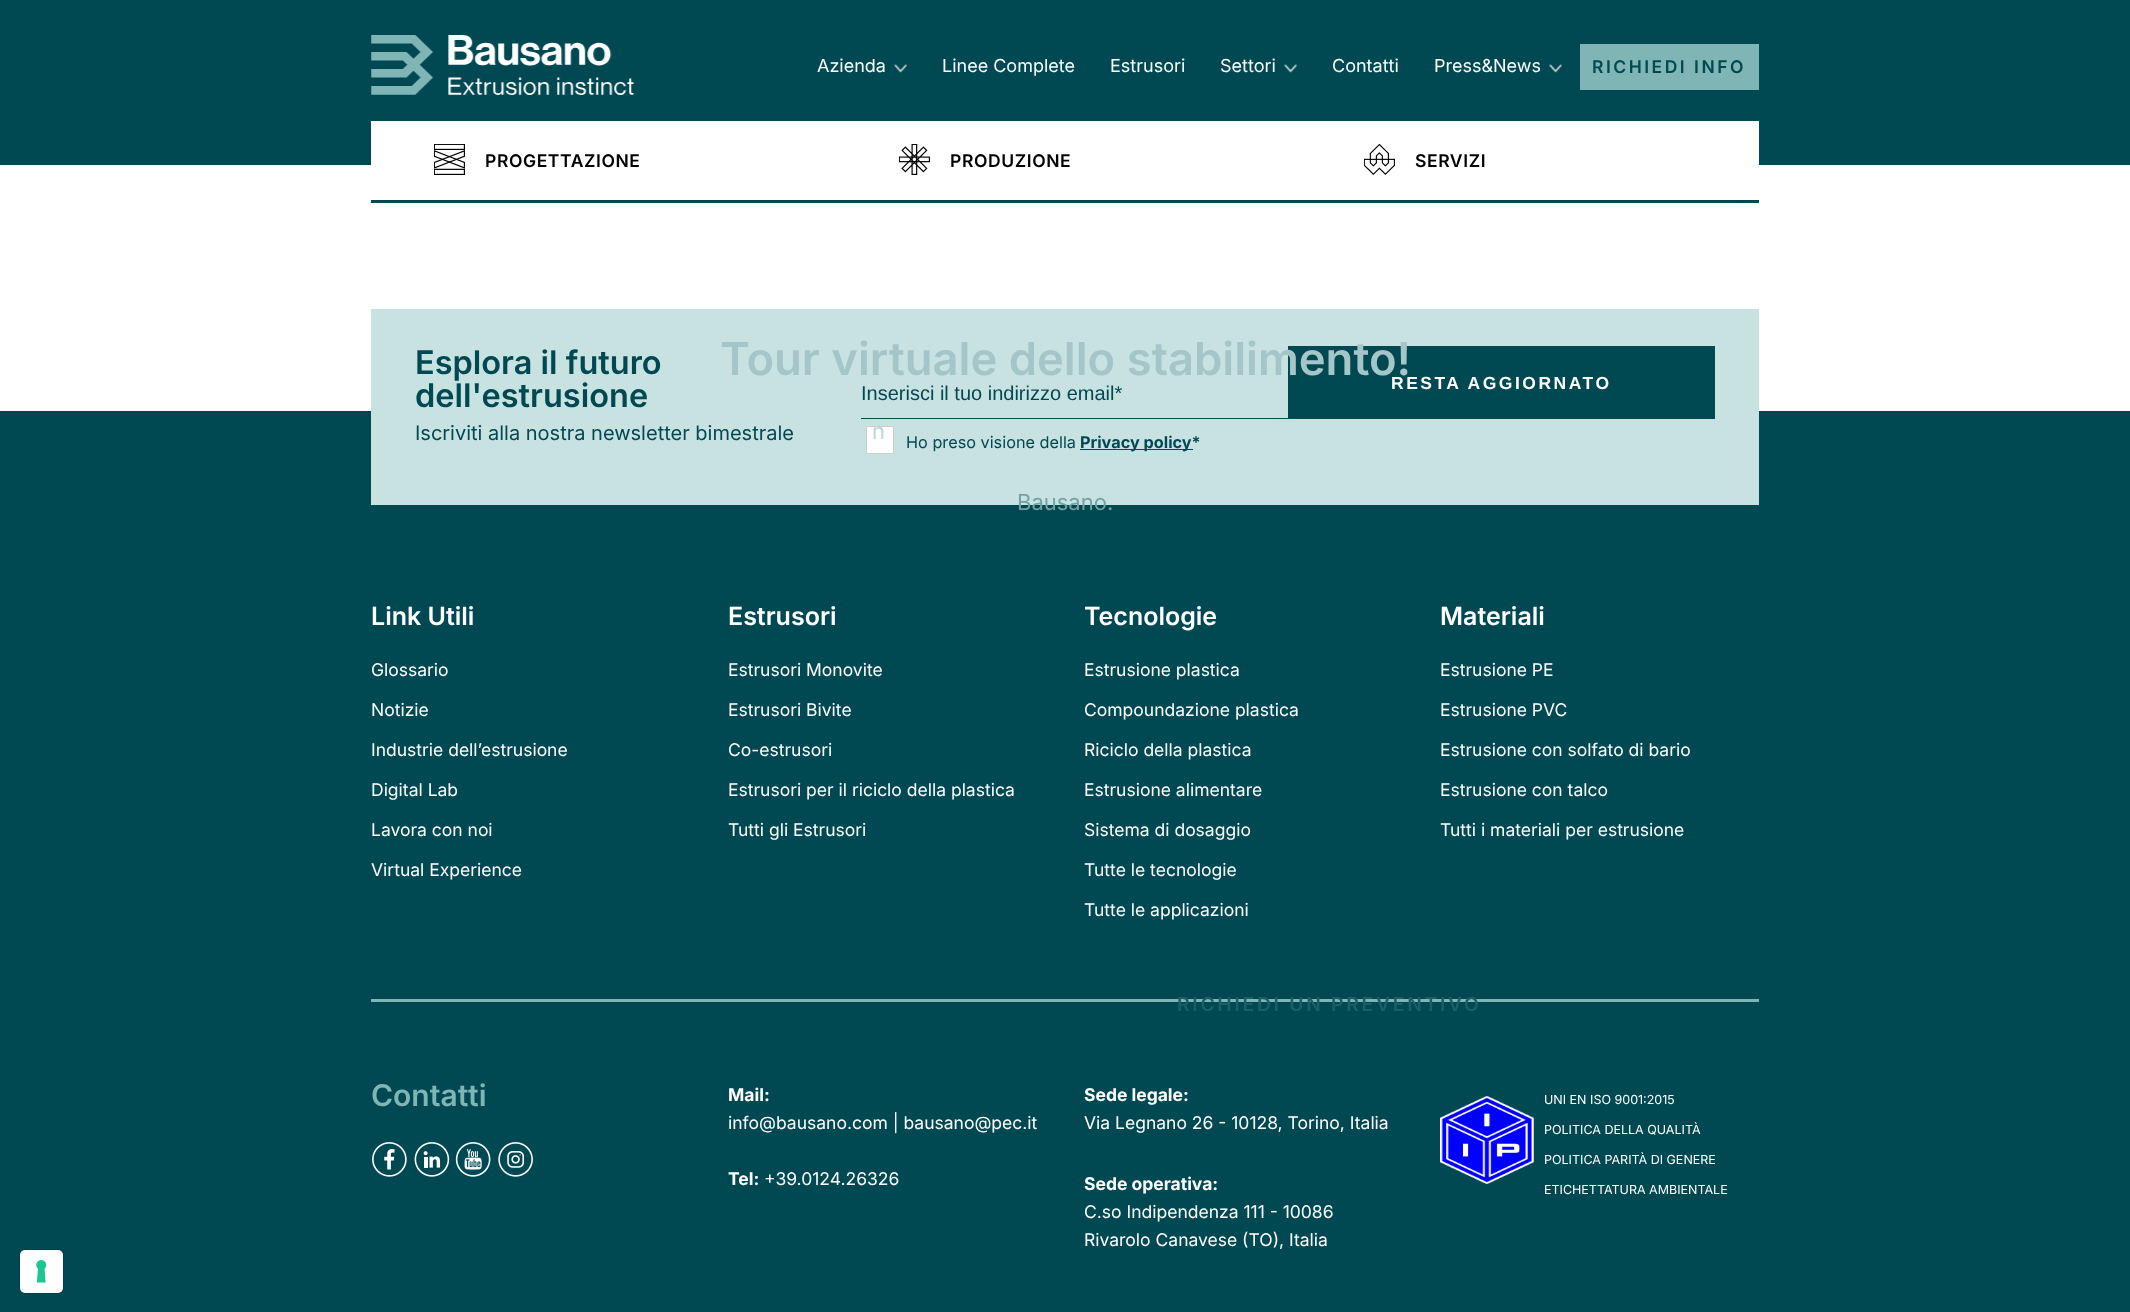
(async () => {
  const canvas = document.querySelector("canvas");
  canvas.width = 2130;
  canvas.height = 1312;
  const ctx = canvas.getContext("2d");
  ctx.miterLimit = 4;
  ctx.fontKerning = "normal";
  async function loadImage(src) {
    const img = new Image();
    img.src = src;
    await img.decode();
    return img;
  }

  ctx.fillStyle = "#ffffff";
  ctx.fillRect(0, 0, 2130, 1312);
  ctx.fillStyle = "#004953";
  ctx.fillRect(0, 0, 2130, 165);
  ctx.drawImage(await loadImage("img/1.png"), 371, 35, 264, 60);
  ctx.drawImage(await loadImage("img/2.png"), 894, 64, 13, 9);
  ctx.drawImage(await loadImage("img/2.png"), 1284, 64, 13, 9);
  ctx.drawImage(await loadImage("img/2.png"), 1549, 64, 13, 9);
  for (const [x, y, w, h, color] of [
    [1580, 44, 179, 46, "#7fb5b5"],
    [371, 121, 1388, 44, "#ffffff"],
    [371, 200, 1388, 3, "#004953"],
  ]) {
    ctx.fillStyle = color;
    ctx.fillRect(x, y, w, h);
  }
  ctx.drawImage(await loadImage("img/3.png"), 434, 144, 31, 31);
  ctx.drawImage(await loadImage("img/4.png"), 899, 144, 31, 31);
  ctx.drawImage(await loadImage("img/5.png"), 1364, 144, 31, 31);
  for (const [x, y, w, h, color] of [
    [0, 411, 2130, 901, "#004953"],
    [371, 309, 1388, 196, "#c8e2e2"],
    [1288, 346, 427, 73, "#004953"],
    [861, 418, 427, 1, "#004953"],
  ]) {
    ctx.fillStyle = color;
    ctx.fillRect(x, y, w, h);
  }
  ctx.fillStyle = "#ffffff";
  ctx.beginPath();
  ctx.roundRect(866.5, 426.5, 27, 27, 0.5);
  ctx.fill();
  ctx.strokeStyle = "#cccccc";
  ctx.stroke();
  ctx.fillStyle = "#004953";
  ctx.fillRect(1080, 449, 113, 1);
  ctx.fillStyle = "#7fb5b5";
  ctx.fillRect(371, 999, 1388, 3);
  ctx.drawImage(await loadImage("img/6.png"), 372, 1142, 35, 35);
  ctx.drawImage(await loadImage("img/7.png"), 414, 1142, 36, 35);
  ctx.drawImage(await loadImage("img/8.png"), 455, 1142, 36, 35);
  ctx.drawImage(await loadImage("img/9.png"), 498, 1142, 35, 35);
  ctx.drawImage(await loadImage("img/10.png"), 1440, 1096, 94, 88);
  ctx.beginPath();
  ctx.roundRect(19.5, 1249.5, 44, 44, 5.5);
  ctx.strokeStyle = "#003e47";
  ctx.stroke();
  ctx.fillStyle = "#ffffff";
  ctx.beginPath();
  ctx.roundRect(20, 1250, 43, 43, 5);
  ctx.fill();
  ctx.drawImage(await loadImage("img/11.png"), 36, 1260, 11, 23);
  ctx.font = "18px Inter";
  for (const [text, x, y] of [
    ["Azienda", 817, 72],
    ["Linee Complete", 942, 72],
    ["Estrusori", 1110, 72],
    ["Settori", 1220, 72],
    ["Contatti", 1332, 72],
    ["Press&News", 1434, 72],
  ]) {
    ctx.fillText(text, x, y);
  }
  ctx.letterSpacing = "2.5px";
  ctx.font = "600 17.5px Inter";
  ctx.fillStyle = "#004953";
  ctx.fillText("RICHIEDI INFO", 1592, 73);
  ctx.letterSpacing = "0.6px";
  ctx.fillStyle = "#000000";
  for (const [text, x, y] of [
    ["PROGETTAZIONE", 485, 167],
    ["PRODUZIONE", 950, 167],
    ["SERVIZI", 1415, 167],
  ]) {
    ctx.fillText(text, x, y);
  }
  ctx.letterSpacing = "0px";
  ctx.font = "600 45.4px Inter";
  ctx.fillStyle = "#a4c6c8";
  ctx.fillText("Tour virtuale dello stabilimento!", 720, 375);
  ctx.font = "22px Inter";
  ctx.fillStyle = "#bbd7d8";
  ctx.fillText("n", 872, 439);
  ctx.fillStyle = "#73a1a5";
  ctx.fillText("Bausano.", 1017, 510);
  ctx.font = "600 32.5px Inter";
  ctx.fillStyle = "#004953";
  ctx.fillText("Esplora il futuro", 415, 374);
  ctx.fillText("dell'estrusione", 415, 407);
  ctx.font = "20px Inter";
  ctx.fillText("Iscriviti alla nostra newsletter bimestrale", 415, 440);
  ctx.letterSpacing = "2.5px";
  ctx.font = "bold 17.5px Liberation Sans";
  ctx.fillStyle = "#ffffff";
  ctx.fillText("RESTA AGGIORNATO", 1391, 389);
  ctx.letterSpacing = "0px";
  ctx.font = "20px Liberation Sans";
  ctx.fillStyle = "#004953";
  ctx.fillText("Inserisci il tuo indirizzo email*", 861, 400);
  ctx.font = "16.25px Inter";
  ctx.fillText("Ho preso visione della", 906, 448);
  ctx.font = "bold 16.25px Inter";
  ctx.fillText("Privacy policy*", 1080, 448);
  ctx.font = "600 25px Inter";
  ctx.fillStyle = "#ffffff";
  ctx.fillText("Link Utili", 371, 625);
  ctx.font = "17.5px Inter";
  for (const [text, x, y] of [
    ["Glossario", 371, 676],
    ["Notizie", 371, 716],
    ["Industrie dell’estrusione", 371, 756],
    ["Digital Lab", 371, 796],
    ["Lavora con noi", 371, 836],
    ["Virtual Experience", 371, 876],
  ]) {
    ctx.fillText(text, x, y);
  }
  ctx.font = "600 25px Inter";
  ctx.fillText("Estrusori", 728, 625);
  ctx.font = "17.5px Inter";
  for (const [text, x, y] of [
    ["Estrusori Monovite", 728, 676],
    ["Estrusori Bivite", 728, 716],
    ["Co-estrusori", 728, 756],
    ["Estrusori per il riciclo della plastica", 728, 796],
    ["Tutti gli Estrusori", 728, 836],
  ]) {
    ctx.fillText(text, x, y);
  }
  ctx.font = "600 25px Inter";
  ctx.fillText("Tecnologie", 1084, 625);
  ctx.font = "17.5px Inter";
  for (const [text, x, y] of [
    ["Estrusione plastica", 1084, 676],
    ["Compoundazione plastica", 1084, 716],
    ["Riciclo della plastica", 1084, 756],
    ["Estrusione alimentare", 1084, 796],
    ["Sistema di dosaggio", 1084, 836],
    ["Tutte le tecnologie", 1084, 876],
    ["Tutte le applicazioni", 1084, 916],
  ]) {
    ctx.fillText(text, x, y);
  }
  ctx.font = "600 25px Inter";
  ctx.fillText("Materiali", 1440, 625);
  ctx.font = "17.5px Inter";
  for (const [text, x, y] of [
    ["Estrusione PE", 1440, 676],
    ["Estrusione PVC", 1440, 716],
    ["Estrusione con solfato di bario", 1440, 756],
    ["Estrusione con talco", 1440, 796],
    ["Tutti i materiali per estrusione", 1440, 836],
  ]) {
    ctx.fillText(text, x, y);
  }
  ctx.font = "600 30px Inter";
  ctx.fillStyle = "#7fb5b5";
  ctx.fillText("Contatti", 371, 1106);
  ctx.font = "bold 17.5px Inter";
  ctx.fillStyle = "#ffffff";
  ctx.fillText("Mail:", 728, 1101);
  ctx.font = "17.5px Inter";
  ctx.fillText("info@bausano.com | bausano@pec.it", 728, 1129);
  ctx.font = "bold 17.5px Inter";
  ctx.fillText("Tel:", 728, 1185);
  ctx.font = "17.5px Inter";
  ctx.fillText("+39.0124.26326", 764, 1185);
  ctx.font = "bold 17.5px Inter";
  ctx.fillText("Sede legale:", 1084, 1101);
  ctx.font = "17.5px Inter";
  ctx.fillText("Via Legnano 26 - 10128, Torino, Italia", 1084, 1129);
  ctx.font = "bold 17.5px Inter";
  ctx.fillText("Sede operativa:", 1084, 1190);
  ctx.font = "17.5px Inter";
  ctx.fillText("C.so Indipendenza 111 - 10086", 1084, 1218);
  ctx.fillText("Rivarolo Canavese (TO), Italia", 1084, 1246);
  ctx.font = "12.5px Inter";
  for (const [text, x, y] of [
    ["UNI EN ISO 9001:2015", 1544, 1104],
    ["POLITICA DELLA QUALITÀ", 1544, 1134],
    ["POLITICA PARITÀ DI GENERE", 1544, 1164],
    ["ETICHETTATURA AMBIENTALE", 1544, 1194],
  ]) {
    ctx.fillText(text, x, y);
  }
  ctx.letterSpacing = "2.75px";
  ctx.font = "600 19.25px Inter";
  ctx.fillStyle = "#1a5f67";
  ctx.fillText("RICHIEDI UN PREVENTIVO", 1177, 1011);
})();
